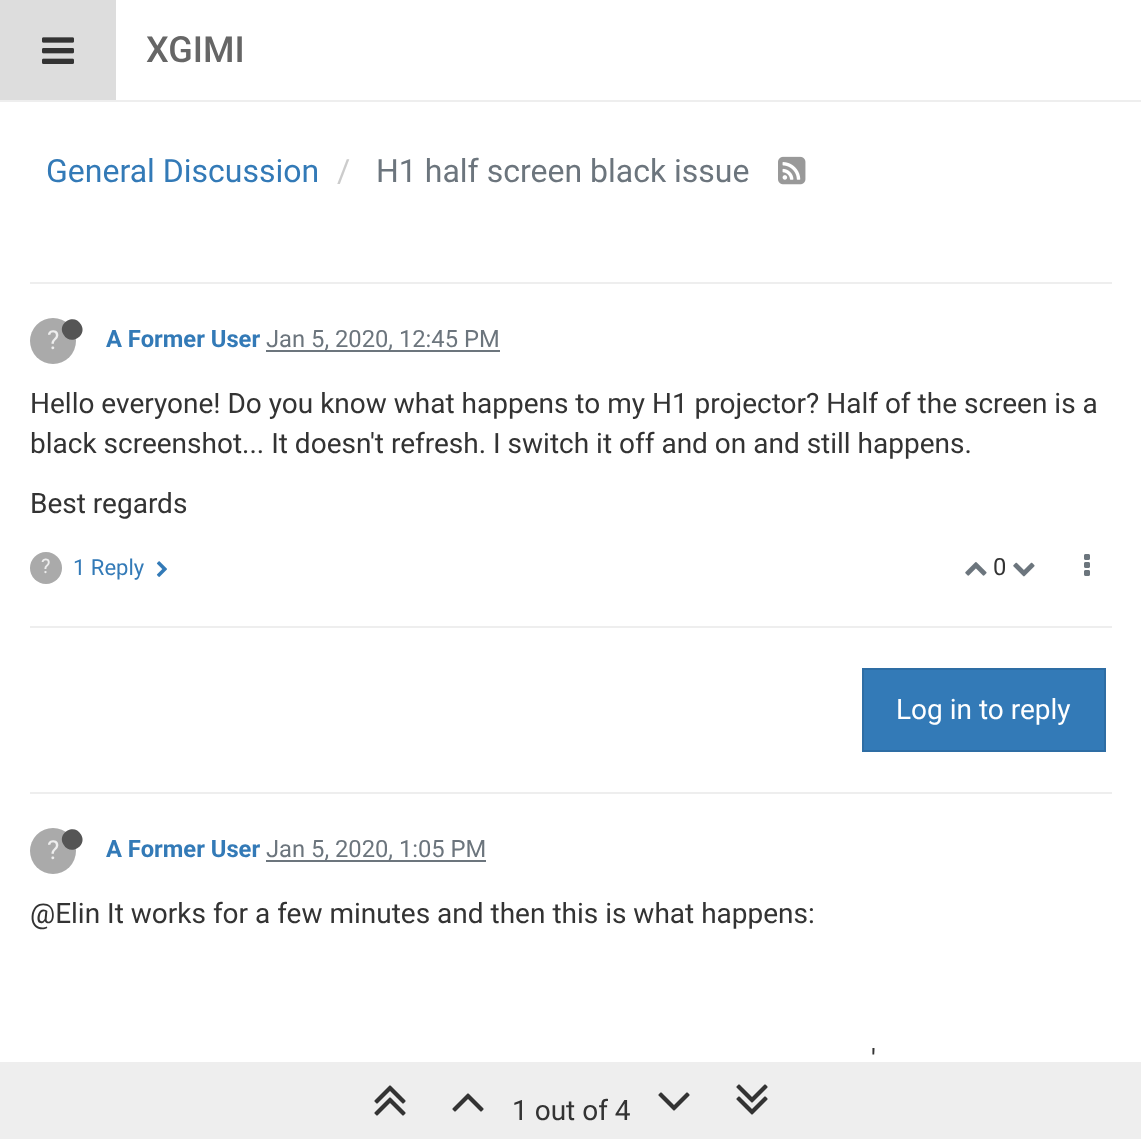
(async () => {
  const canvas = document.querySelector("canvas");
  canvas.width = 1141;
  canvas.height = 1139;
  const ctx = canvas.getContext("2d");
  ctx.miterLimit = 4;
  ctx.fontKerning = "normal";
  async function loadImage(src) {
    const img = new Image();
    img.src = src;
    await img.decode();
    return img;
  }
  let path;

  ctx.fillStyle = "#ffffff";
  ctx.fillRect(0, 0, 1141, 1139);
  ctx.fillStyle = "#eeeeee";
  ctx.fillRect(0, 100, 1141, 2);
  ctx.fillStyle = "#dddddd";
  ctx.fillRect(0, 0, 116, 100);
  ctx.drawImage(await loadImage("img/1.png"), 42, 37, 32, 27);
  ctx.drawImage(await loadImage("img/2.png"), 778, 156, 28, 29);
  ctx.fillStyle = "#eeeeee";
  ctx.fillRect(30, 282, 1082, 2);
  ctx.fillStyle = "#aaaaaa";
  ctx.beginPath();
  ctx.arc(53, 341, 23, 0, Math.PI * 2);
  ctx.fill();
  ctx.fillStyle = "#555555";
  path = new Path2D("M81 324.5C88 336 70 346.5 63.5 334.5C56.5 323 74.5 312.5 81 324.5Z");
  ctx.fill(path);
  ctx.fillStyle = "#6c757d";
  ctx.fillRect(266, 350, 234, 2);
  ctx.fillStyle = "#aaaaaa";
  ctx.beginPath();
  ctx.arc(46, 568, 16, 0, Math.PI * 2);
  ctx.fill();
  ctx.drawImage(await loadImage("img/3.png"), 156, 561, 11, 16);
  ctx.drawImage(await loadImage("img/4.png"), 965, 562, 22, 14);
  ctx.drawImage(await loadImage("img/5.png"), 1013, 562, 22, 15);
  ctx.drawImage(await loadImage("img/6.png"), 1084, 554, 6, 22);
  ctx.fillStyle = "#eeeeee";
  ctx.fillRect(30, 626, 1082, 2);
  ctx.fillStyle = "#337ab7";
  ctx.beginPath();
  ctx.rect(863, 669, 242, 82);
  ctx.fill();
  ctx.strokeStyle = "#2e6da4";
  ctx.lineWidth = 2;
  ctx.stroke();
  ctx.fillStyle = "#eeeeee";
  ctx.fillRect(30, 792, 1082, 2);
  ctx.fillStyle = "#aaaaaa";
  ctx.beginPath();
  ctx.arc(53, 851, 23, 0, Math.PI * 2);
  ctx.fill();
  ctx.fillStyle = "#555555";
  path = new Path2D("M81 834.5C88 846 70 856.5 63.5 844.5C56.5 833 74.5 822.5 81 834.5Z");
  ctx.fill(path);
  ctx.fillStyle = "#6c757d";
  ctx.fillRect(266, 860, 220, 2);
  ctx.fillStyle = "#eeeeee";
  ctx.fillRect(0, 1062, 1141, 77);
  ctx.drawImage(await loadImage("img/7.png"), 374, 1085, 32, 31);
  ctx.drawImage(await loadImage("img/8.png"), 452, 1093, 32, 19);
  ctx.drawImage(await loadImage("img/9.png"), 658, 1092, 32, 19);
  ctx.drawImage(await loadImage("img/10.png"), 736, 1084, 32, 31);
  ctx.font = "500 36px Roboto";
  ctx.fillStyle = "#666666";
  ctx.fillText("XGIMI", 146, 62);
  ctx.font = "32px Roboto";
  ctx.fillStyle = "#337ab7";
  ctx.fillText("General Discussion", 46, 182);
  ctx.fillStyle = "#cccccc";
  ctx.fillText("/", 337, 182);
  ctx.fillStyle = "#6c757d";
  ctx.fillText("H1 half screen black issue", 376, 182);
  ctx.font = "26px Roboto";
  ctx.fillStyle = "#eeeeee";
  ctx.fillText("?", 47, 349);
  ctx.font = "bold 23.75px Roboto";
  ctx.fillStyle = "#337ab7";
  ctx.fillText("A Former User", 106, 347);
  ctx.font = "23.75px Roboto";
  ctx.fillStyle = "#6c757d";
  ctx.fillText("Jan 5, 2020, 12:45 PM", 266, 347);
  ctx.font = "28px Roboto";
  ctx.fillStyle = "#333333";
  for (const [text, x, y] of [
    ["Hello everyone! Do you know what happens to my H1 projector? Half of the screen is a", 30, 413],
    ["black screenshot... It doesn't refresh. I switch it off and on and still happens.", 30, 453],
    ["Best regards", 30, 513],
  ]) {
    ctx.fillText(text, x, y);
  }
  ctx.font = "20px Roboto";
  ctx.fillStyle = "#eeeeee";
  ctx.fillText("?", 41, 573);
  ctx.font = "22px Roboto";
  ctx.fillStyle = "#337ab7";
  ctx.fillText("1 Reply", 73, 575);
  ctx.font = "23.75px Roboto";
  ctx.fillStyle = "#333333";
  ctx.fillText("0", 993, 575);
  ctx.font = "28px Roboto";
  ctx.fillStyle = "#ffffff";
  ctx.fillText("Log in to reply", 896, 719);
  ctx.font = "26px Roboto";
  ctx.fillStyle = "#eeeeee";
  ctx.fillText("?", 47, 859);
  ctx.font = "bold 23.75px Roboto";
  ctx.fillStyle = "#337ab7";
  ctx.fillText("A Former User", 106, 857);
  ctx.font = "23.75px Roboto";
  ctx.fillStyle = "#6c757d";
  ctx.fillText("Jan 5, 2020, 1:05 PM", 266, 857);
  ctx.font = "28px Roboto";
  ctx.fillStyle = "#333333";
  for (const [text, x, y] of [
    ["@Elin It works for a few minutes and then this is what happens:", 30, 923],
    ["'", 871, 1069],
    ["1 out of 4", 512, 1120],
  ]) {
    ctx.fillText(text, x, y);
  }
})();
